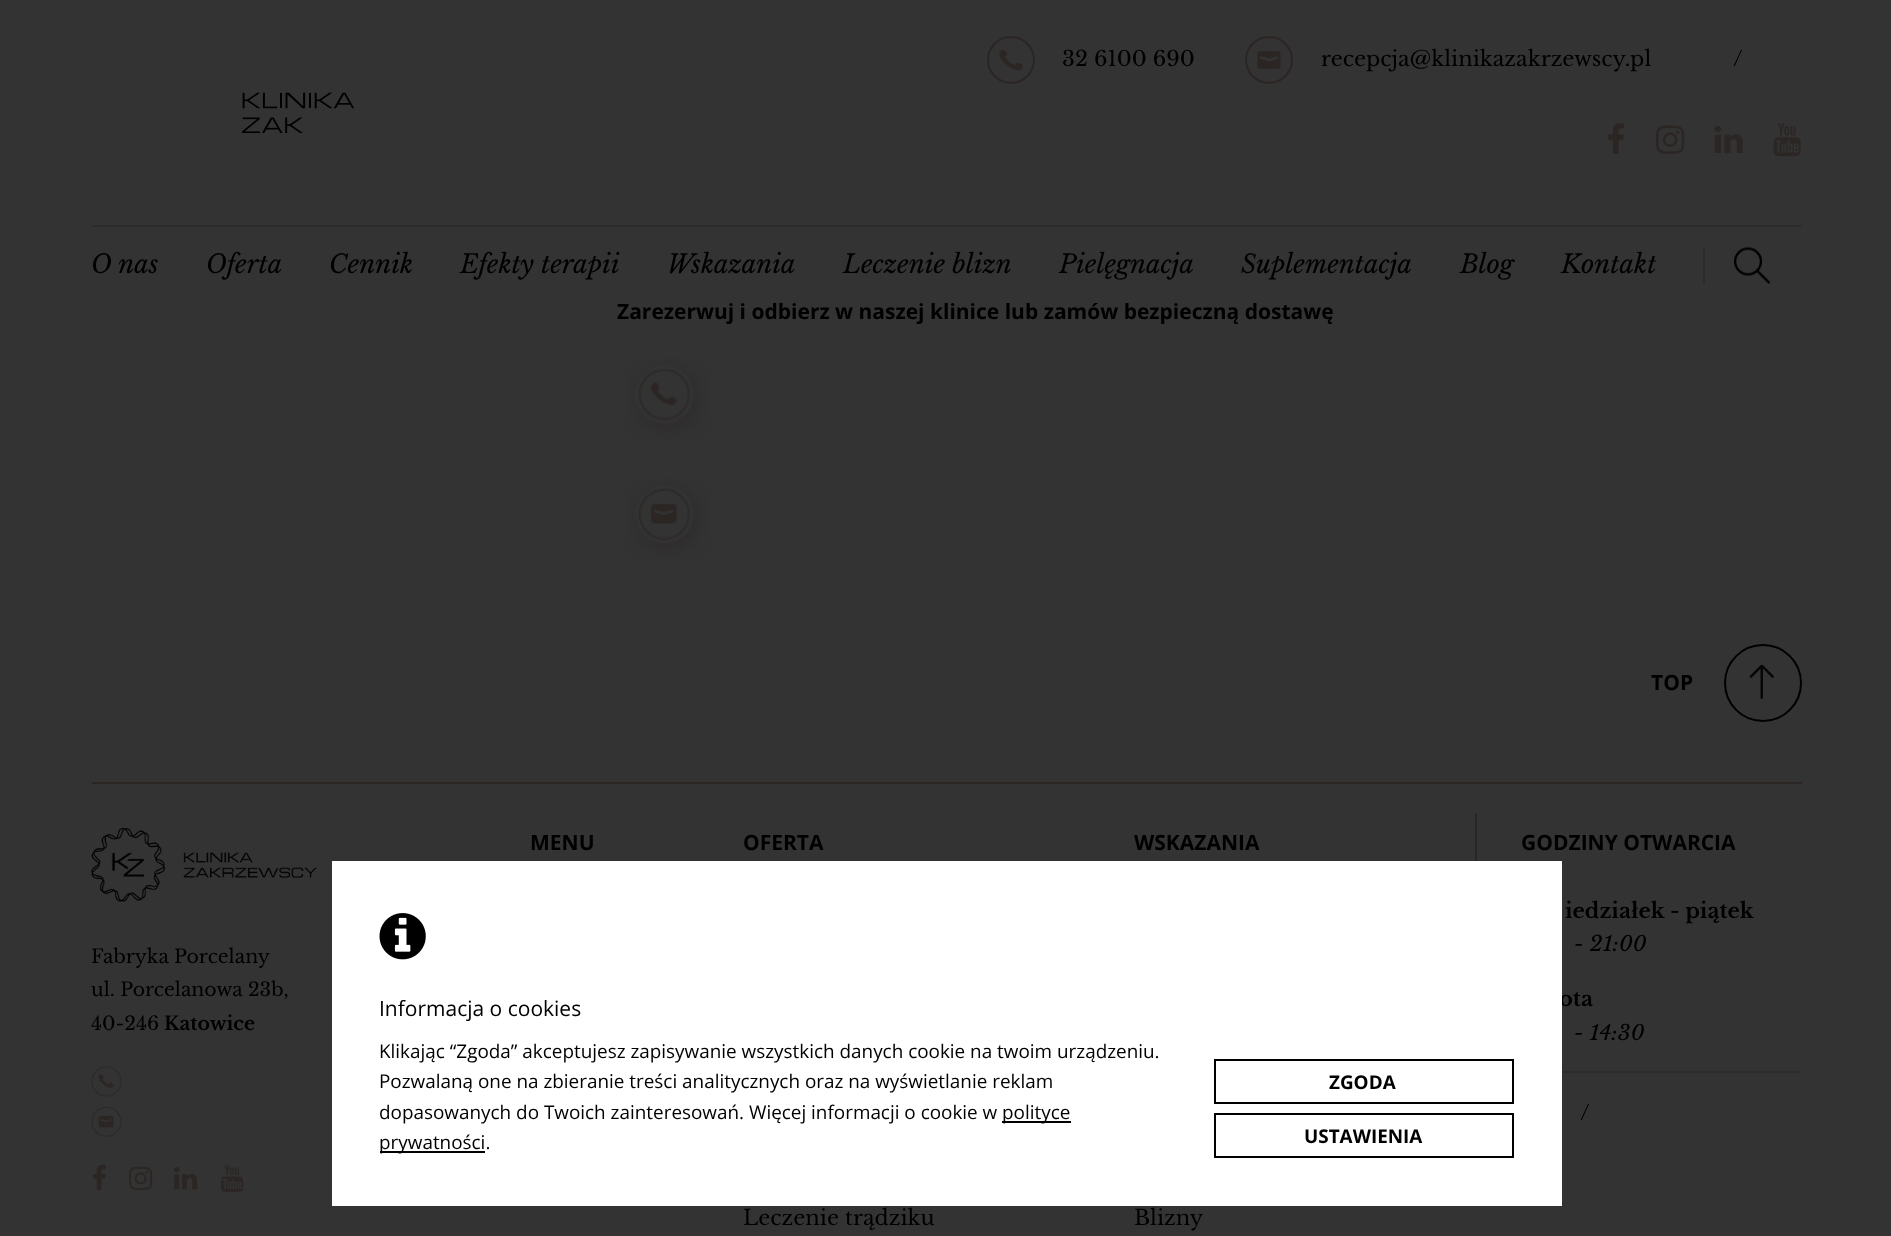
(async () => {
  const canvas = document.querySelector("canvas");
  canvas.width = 1891;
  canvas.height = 1236;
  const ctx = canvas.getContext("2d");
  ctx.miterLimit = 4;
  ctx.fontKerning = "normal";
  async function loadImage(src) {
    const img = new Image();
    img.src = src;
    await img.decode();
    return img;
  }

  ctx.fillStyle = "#333333";
  ctx.fillRect(0, 0, 1891, 1236);
  ctx.fillStyle = "#2b2c2c";
  ctx.fillRect(92, 225, 1710, 2);
  ctx.drawImage(await loadImage("img/1.png"), 999, 50, 24, 21);
  ctx.beginPath();
  ctx.arc(1011, 60, 23, 0, Math.PI * 2);
  ctx.strokeStyle = "#2b2624";
  ctx.lineWidth = 2;
  ctx.stroke();
  ctx.drawImage(await loadImage("img/2.png"), 1257, 51, 25, 18);
  ctx.beginPath();
  ctx.arc(1269, 60, 23, 0, Math.PI * 2);
  ctx.stroke();
  ctx.drawImage(await loadImage("img/3.png"), 242, 92, 113, 41);
  ctx.drawImage(await loadImage("img/4.png"), 1608, 123, 17, 31);
  ctx.drawImage(await loadImage("img/5.png"), 1656, 125, 29, 29);
  ctx.drawImage(await loadImage("img/6.png"), 1714, 126, 29, 27);
  ctx.drawImage(await loadImage("img/7.png"), 1773, 123, 28, 34);
  ctx.drawImage(await loadImage("img/8.png"), 1734, 247, 36, 37);
  ctx.fillRect(1703, 248, 2, 36);
  ctx.drawImage(await loadImage("img/9.png"), 625, 358, 85, 82);
  ctx.drawImage(await loadImage("img/10.png"), 625, 478, 85, 82);
  ctx.drawImage(await loadImage("img/11.png"), 1749, 665, 25, 34);
  ctx.beginPath();
  ctx.arc(1763, 683, 38, 0, Math.PI * 2);
  ctx.strokeStyle = "#000000";
  ctx.stroke();
  for (const [x, y, w, h, color] of [
    [92, 782, 1710, 2, "#2b2624"],
    [1475, 813, 2, 48, "#2b2624"],
    [1562, 1071, 238, 2, "#2b2c2c"],
  ]) {
    ctx.fillStyle = color;
    ctx.fillRect(x, y, w, h);
  }
  ctx.drawImage(await loadImage("img/12.png"), 91, 828, 226, 74);
  ctx.drawImage(await loadImage("img/13.png"), 91, 1066, 31, 31);
  ctx.drawImage(await loadImage("img/14.png"), 91, 1107, 31, 30);
  ctx.drawImage(await loadImage("img/15.png"), 92, 1164, 14, 26);
  ctx.drawImage(await loadImage("img/16.png"), 129, 1166, 24, 24);
  ctx.drawImage(await loadImage("img/17.png"), 174, 1167, 24, 23);
  ctx.drawImage(await loadImage("img/18.png"), 220, 1164, 24, 28);
  ctx.font = "21px Libre Baskerville";
  ctx.fillStyle = "#000000";
  for (const [text, x, y] of [
    ["32 6100 690", 1062, 66],
    ["recepcja@klinikazakrzewscy.pl", 1321, 66],
    ["/", 1733, 66],
  ]) {
    ctx.fillText(text, x, y);
  }
  ctx.font = "italic 25.5px Libre Baskerville";
  for (const [text, x, y] of [
    ["O nas", 91, 273],
    ["Oferta", 206, 273],
    ["Cennik", 329, 273],
    ["Efekty terapii", 460, 273],
    ["Wskazania", 667, 273],
    ["Leczenie blizn", 843, 273],
    ["Pielęgnacja", 1059, 273],
    ["Suplementacja", 1241, 273],
    ["Blog", 1460, 273],
    ["Kontakt", 1561, 273],
  ]) {
    ctx.fillText(text, x, y);
  }
  ctx.font = "bold 21px Open Sans";
  ctx.fillText("Zarezerwuj i odbierz w naszej klinice lub zamów bezpieczną dostawę", 617, 319);
  ctx.fillStyle = "#333333";
  ctx.fillRect(1095, 302, 3, 1);
  ctx.fillStyle = "#000000";
  for (const [text, x, y] of [
    ["TOP", 1651, 690],
    ["MENU", 530, 850],
    ["OFERTA", 743, 850],
  ]) {
    ctx.fillText(text, x, y);
  }
  ctx.font = "21px Libre Baskerville";
  ctx.fillText("Leczenie trądziku", 743, 1225);
  ctx.font = "bold 21px Open Sans";
  ctx.fillText("WSKAZANIA", 1134, 850);
  ctx.font = "21px Libre Baskerville";
  ctx.fillText("Blizny", 1134, 1225);
  ctx.font = "bold 21px Open Sans";
  ctx.fillText("GODZINY OTWARCIA", 1521, 850);
  ctx.font = "bold 21px Libre Baskerville";
  ctx.fillText("iedziałek - piątek", 1565, 918);
  ctx.font = "italic 21px Libre Baskerville";
  ctx.fillText("- 21:00", 1574, 951);
  ctx.font = "bold 21px Libre Baskerville";
  ctx.fillText("ota", 1559, 1006);
  ctx.font = "italic 21px Libre Baskerville";
  ctx.fillText("- 14:30", 1574, 1040);
  ctx.font = "21px Libre Baskerville";
  ctx.fillText("/", 1580, 1120);
  ctx.font = "18.9px Libre Baskerville";
  for (const [text, x, y] of [
    ["Fabryka Porcelany", 91, 963],
    ["ul. Porcelanowa 23b,", 91, 996],
    ["40-246", 91, 1030],
  ]) {
    ctx.fillText(text, x, y);
  }
  ctx.font = "bold 18.9px Libre Baskerville";
  ctx.fillText("Katowice", 164, 1030);
  ctx.fillStyle = "#ffffff";
  ctx.fillRect(332, 861, 1230, 345);
  ctx.drawImage(await loadImage("img/19.png"), 379, 913, 47, 47);
  ctx.font = "21px Open Sans";
  ctx.fillStyle = "#000000";
  ctx.fillText("Informacja o cookies", 379, 1016);
  ctx.font = "18.9px Open Sans";
  for (const [text, x, y] of [
    ["Klikając “Zgoda” akceptujesz zapisywanie wszystkich danych cookie na twoim urządzeniu.", 379, 1058],
    ["Pozwalaną one na zbieranie treści analitycznych oraz na wyświetlanie reklam", 379, 1088],
    ["dopasowanych do Twoich zainteresowań. Więcej informacji o cookie w", 379, 1119],
  ]) {
    ctx.fillText(text, x, y);
  }
  ctx.fillRect(1002, 1121, 69, 2);
  ctx.fillText("polityce", 1002, 1119);
  ctx.fillRect(380, 1151, 105, 2);
  ctx.fillText("prywatności.", 379, 1149);
  ctx.strokeRect(1215, 1060, 298, 43);
  ctx.font = "bold 18.9px Open Sans";
  ctx.fillText("ZGODA", 1329, 1089);
  ctx.strokeRect(1215, 1114, 298, 43);
  ctx.fillText("USTAWIENIA", 1304, 1143);
})();
